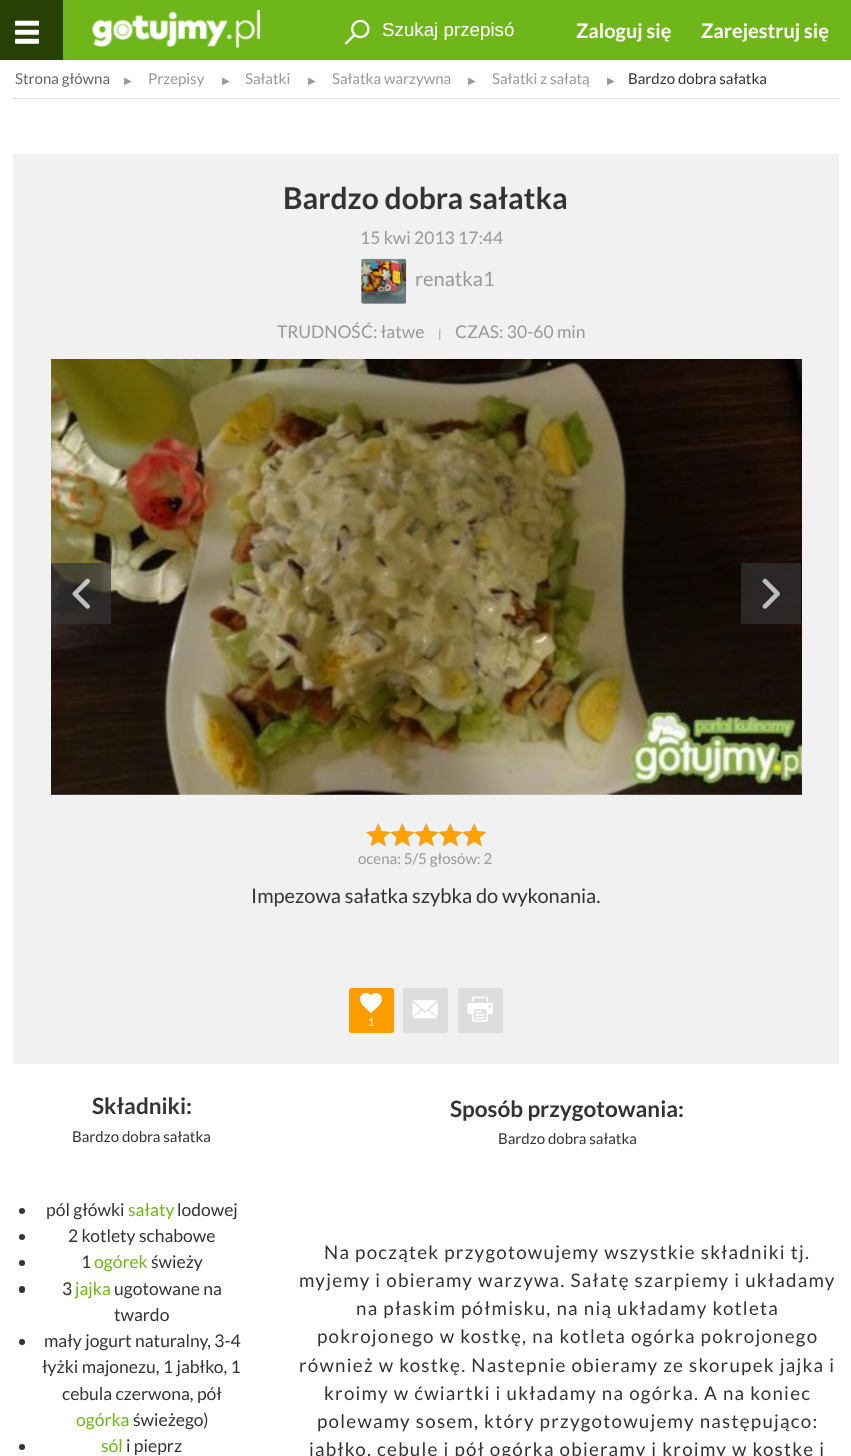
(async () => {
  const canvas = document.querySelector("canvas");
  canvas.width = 851;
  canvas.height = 1456;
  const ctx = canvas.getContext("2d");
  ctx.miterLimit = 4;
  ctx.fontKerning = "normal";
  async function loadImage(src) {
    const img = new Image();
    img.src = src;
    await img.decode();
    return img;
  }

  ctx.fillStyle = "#ffffff";
  ctx.fillRect(0, 0, 851, 1456);
  ctx.fillStyle = "#6fb61b";
  ctx.fillRect(63, 0, 788, 60);
  ctx.fillStyle = "#264006";
  ctx.fillRect(0, 0, 63, 60);
  ctx.drawImage(await loadImage("img/1.png"), 15, 20, 24, 24);
  ctx.drawImage(await loadImage("img/2.png"), 92, 10, 168, 38);
  ctx.drawImage(await loadImage("img/3.png"), 345, 19, 25, 26);
  ctx.fillStyle = "#dddddd";
  ctx.fillRect(13, 98, 826, 1);
  ctx.fillStyle = "#f1f1f1";
  ctx.fillRect(13, 154, 826, 910);
  ctx.fillStyle = "#dddddd";
  ctx.beginPath();
  ctx.roundRect(361, 259, 45, 45, 2.5);
  ctx.fill();
  ctx.drawImage(await loadImage("img/4.png"), 361, 258, 46, 46);
  ctx.drawImage(await loadImage("img/5.png"), 51, 359, 751, 436);
  ctx.fillStyle = "rgba(51, 51, 51, 0.7)";
  ctx.fillRect(51, 563, 60, 61);
  ctx.drawImage(await loadImage("img/6.png"), 72, 578, 18, 31);
  ctx.fillRect(741, 563, 60, 61);
  ctx.drawImage(await loadImage("img/7.png"), 762, 578, 18, 31);
  ctx.drawImage(await loadImage("img/8.png"), 366, 823, 120, 23);
  ctx.drawImage(await loadImage("img/9.png"), 366, 823, 119, 23);
  ctx.fillStyle = "#ff9c00";
  ctx.beginPath();
  ctx.roundRect(349, 988, 45, 45, 2.5);
  ctx.fill();
  ctx.drawImage(await loadImage("img/10.png"), 360, 993, 22, 20);
  ctx.fillStyle = "#dddddd";
  ctx.beginPath();
  ctx.roundRect(403, 988, 45, 45, 2.5);
  ctx.fill();
  ctx.drawImage(await loadImage("img/11.png"), 412, 1000, 26, 19);
  ctx.beginPath();
  ctx.roundRect(458, 988, 45, 45, 2.5);
  ctx.fill();
  ctx.drawImage(await loadImage("img/12.png"), 467, 996, 26, 26);
  ctx.fillStyle = "#333333";
  ctx.beginPath();
  ctx.arc(22, 1211, 3, 0, Math.PI * 2);
  ctx.fill();
  ctx.beginPath();
  ctx.arc(22, 1237, 3, 0, Math.PI * 2);
  ctx.fill();
  ctx.beginPath();
  ctx.arc(22, 1263, 3, 0, Math.PI * 2);
  ctx.fill();
  ctx.beginPath();
  ctx.roundRect(19, 1286, 6, 7, 3);
  ctx.fill();
  ctx.beginPath();
  ctx.arc(22, 1342, 3, 0, Math.PI * 2);
  ctx.fill();
  ctx.beginPath();
  ctx.arc(22, 1447, 3, 0, Math.PI * 2);
  ctx.fill();
  ctx.font = "18.75px Liberation Sans";
  ctx.fillStyle = "#ffffff";
  ctx.fillText("Szukaj przepisó", 382, 36);
  ctx.font = "bold 20px Lato";
  ctx.fillText("Zaloguj się", 576, 38);
  ctx.fillText("Zarejestruj się", 701, 38);
  ctx.font = "15px Lato";
  ctx.fillStyle = "#666666";
  ctx.fillText("Strona główna", 15, 84);
  ctx.font = "10px DejaVu Sans";
  ctx.fillStyle = "#999999";
  ctx.fillText("▶", 124, 84);
  ctx.font = "15px Lato";
  ctx.fillText("Przepisy", 148, 84);
  ctx.font = "10px DejaVu Sans";
  ctx.fillText("▶", 222, 84);
  ctx.font = "15px Lato";
  ctx.fillText("Sałatki", 245, 84);
  ctx.font = "10px DejaVu Sans";
  ctx.fillText("▶", 308, 84);
  ctx.font = "15px Lato";
  ctx.fillText("Sałatka warzywna", 332, 84);
  ctx.font = "10px DejaVu Sans";
  ctx.fillText("▶", 468, 84);
  ctx.font = "15px Lato";
  ctx.fillText("Sałatki z sałatą", 492, 84);
  ctx.font = "10px DejaVu Sans";
  ctx.fillText("▶", 607, 84);
  ctx.font = "15px Lato";
  ctx.fillStyle = "#333333";
  ctx.fillText("Bardzo dobra sałatka", 628, 84);
  ctx.font = "bold 30px Lato";
  ctx.fillText("Bardzo dobra sałatka", 283, 209);
  ctx.font = "17.5px Lato";
  ctx.fillStyle = "#999999";
  ctx.fillText("15 kwi 2013 17:44", 360, 244);
  ctx.font = "20px Lato";
  ctx.fillText("renatka1", 415, 286);
  ctx.font = "17.5px Lato";
  ctx.fillText("TRUDNOŚĆ: łatwe", 277, 338);
  ctx.font = "12px Lato";
  ctx.fillText("|", 438, 338);
  ctx.font = "17.5px Lato";
  ctx.fillText("CZAS: 30-60 min", 455, 338);
  ctx.font = "15px Lato";
  ctx.fillText("ocena: 5/5 głosów: 2", 358, 864);
  ctx.font = "20px Lato";
  ctx.fillStyle = "#333333";
  ctx.fillText("Impezowa sałatka szybka do wykonania.", 251, 903);
  ctx.font = "11px Lato";
  ctx.fillStyle = "#ffffff";
  ctx.fillText("1", 368, 1026);
  ctx.font = "bold 22.5px Lato";
  ctx.fillStyle = "#333333";
  ctx.fillText("Składniki:", 92, 1114);
  ctx.font = "15px Lato";
  ctx.fillText("Bardzo dobra sałatka", 72, 1142);
  ctx.font = "17.5px Lato";
  ctx.fillText("pól główki", 46, 1216);
  ctx.fillStyle = "#6fb61b";
  ctx.fillText("sałaty", 128, 1216);
  ctx.fillStyle = "#333333";
  for (const [text, x, y] of [
    ["lodowej", 177, 1216],
    ["2 kotlety schabowe", 68, 1242],
    ["1", 81, 1268],
  ]) {
    ctx.fillText(text, x, y);
  }
  ctx.fillStyle = "#6fb61b";
  ctx.fillText("ogórek", 94, 1268);
  ctx.fillStyle = "#333333";
  ctx.fillText("świeży", 151, 1268);
  ctx.fillText("3", 62, 1295);
  ctx.fillStyle = "#6fb61b";
  ctx.fillText("jajka", 75, 1295);
  ctx.fillStyle = "#333333";
  for (const [text, x, y] of [
    ["ugotowane na", 114, 1295],
    ["twardo", 114, 1321],
    ["mały jogurt naturalny, 3-4", 44, 1347],
    ["łyżki majonezu, 1 jabłko, 1", 42, 1373],
    ["cebula czerwona, pół", 62, 1400],
  ]) {
    ctx.fillText(text, x, y);
  }
  ctx.fillStyle = "#6fb61b";
  ctx.fillText("ogórka", 76, 1426);
  ctx.fillStyle = "#333333";
  ctx.fillText("świeżego)", 133, 1426);
  ctx.fillStyle = "#6fb61b";
  ctx.fillText("sól", 101, 1452);
  ctx.fillStyle = "#333333";
  ctx.fillText("i pieprz", 126, 1452);
  ctx.font = "bold 22.5px Lato";
  ctx.fillText("Sposób przygotowania:", 450, 1117);
  ctx.font = "15px Lato";
  ctx.fillText("Bardzo dobra sałatka", 498, 1144);
  ctx.letterSpacing = "1.25px";
  ctx.font = "18.75px Lato";
  for (const [text, x, y] of [
    ["Na początek przygotowujemy wszystkie składniki tj.", 324, 1259],
    ["myjemy i obieramy warzywa. Sałatę szarpiemy i układamy", 299, 1287],
    ["na płaskim półmisku, na nią układamy kotleta", 356, 1315],
    ["pokrojonego w kostkę, na kotleta ogórka pokrojonego", 317, 1343],
    ["również w kostkę. Nastepnie obieramy ze skorupek jajka i", 299, 1372],
    ["kroimy w ćwiartki i układamy na ogórka. A na koniec", 324, 1400],
    ["polewamy sosem, który przygotowujemy następująco:", 317, 1428],
    ["jabłko, cebulę i pół ogórka obieramy i kroimy w kostkę i", 309, 1456],
  ]) {
    ctx.fillText(text, x, y);
  }
})();
